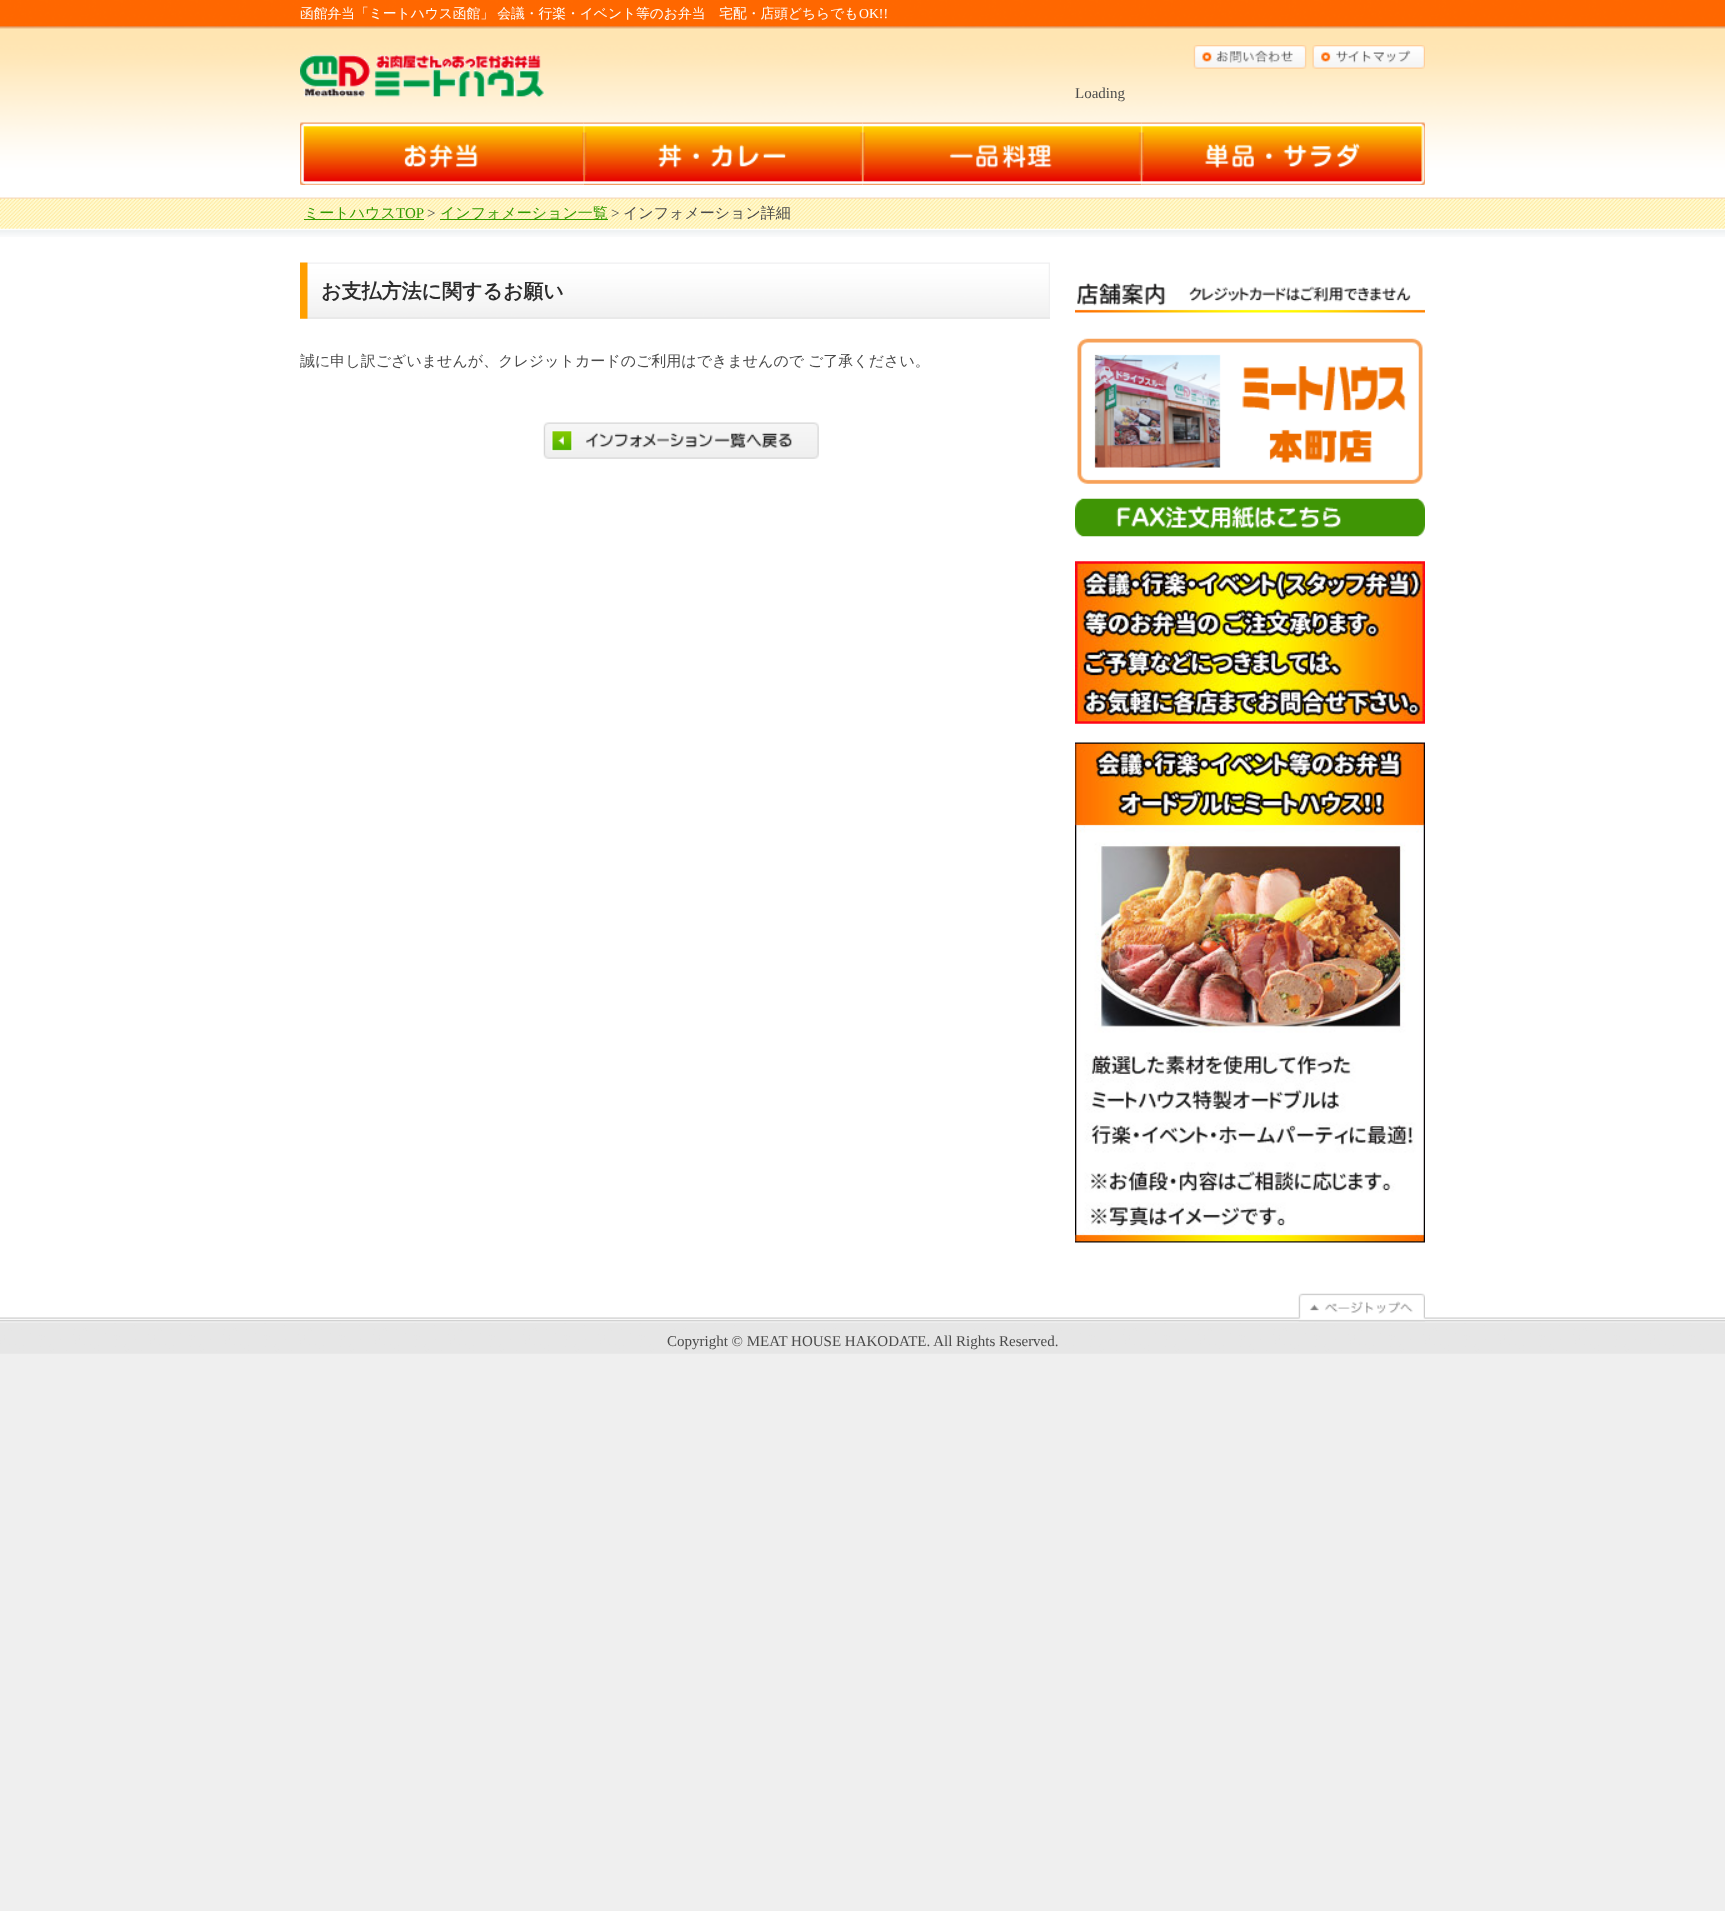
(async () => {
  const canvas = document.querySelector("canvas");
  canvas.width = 1725;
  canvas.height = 1911;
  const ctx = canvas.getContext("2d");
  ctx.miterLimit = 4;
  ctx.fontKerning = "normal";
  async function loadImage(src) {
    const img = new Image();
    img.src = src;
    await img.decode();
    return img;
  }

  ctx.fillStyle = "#efefef";
  ctx.fillRect(0, 0, 1725, 1911);
  ctx.fillStyle = "#ffffff";
  ctx.fillRect(0, 237, 1725, 1081);
  ctx.drawImage(await loadImage("img/1.png"), 0, 0, 1725, 237);
  ctx.drawImage(await loadImage("img/2.png"), 300, 54, 244, 43);
  ctx.drawImage(await loadImage("img/3.png"), 1193, 45, 114, 24);
  ctx.drawImage(await loadImage("img/4.png"), 1312, 45, 113, 24);
  ctx.drawImage(await loadImage("img/5.png"), 300, 122, 284, 63);
  ctx.drawImage(await loadImage("img/6.png"), 583, 122, 280, 63);
  ctx.drawImage(await loadImage("img/7.png"), 862, 122, 280, 63);
  ctx.drawImage(await loadImage("img/8.png"), 1141, 122, 284, 63);
  ctx.fillStyle = "#339900";
  ctx.fillRect(304, 219, 120, 1);
  ctx.fillRect(440, 219, 168, 1);
  ctx.drawImage(await loadImage("img/9.png"), 300, 262, 750, 57);
  ctx.drawImage(await loadImage("img/10.png"), 543, 422, 276, 37);
  ctx.drawImage(await loadImage("img/11.png"), 1075, 283, 350, 30);
  ctx.drawImage(await loadImage("img/12.png"), 1077, 338, 346, 146);
  ctx.drawImage(await loadImage("img/13.png"), 1075, 498, 350, 39);
  ctx.drawImage(await loadImage("img/14.png"), 1075, 561, 350, 163);
  ctx.drawImage(await loadImage("img/15.png"), 1075, 742, 350, 501);
  ctx.drawImage(await loadImage("img/16.png"), 0, 1317, 1725, 37);
  ctx.drawImage(await loadImage("img/17.png"), 1298, 1293, 127, 29);
  ctx.wordSpacing = "-1px";
  ctx.font = "500 13.75px WenQuanYi Zen Hei";
  ctx.fillStyle = "#ffffff";
  ctx.fillText("函館弁当「ミートハウス函館」 会議・行楽・イベント等のお弁当　宅配・店頭どちらでも", 300, 18);
  ctx.wordSpacing = "0px";
  ctx.font = "13.75px Liberation Serif";
  ctx.fillText("OK!!", 859, 18);
  ctx.font = "15px Liberation Serif";
  ctx.fillStyle = "#4a4a4a";
  ctx.fillText("Loading", 1075, 98);
  ctx.font = "500 15px WenQuanYi Zen Hei";
  ctx.fillStyle = "#339900";
  ctx.fillText("ミートハウス", 304, 218);
  ctx.font = "15px Liberation Serif";
  ctx.fillText("TOP", 396, 218);
  ctx.fillStyle = "#4a4a4a";
  ctx.fillText(">", 427, 218);
  ctx.font = "500 15px WenQuanYi Zen Hei";
  ctx.fillStyle = "#339900";
  ctx.fillText("インフォメーション一覧", 440, 218);
  ctx.font = "15px Liberation Serif";
  ctx.fillStyle = "#4a4a4a";
  ctx.fillText(">", 611, 218);
  ctx.font = "500 15px WenQuanYi Zen Hei";
  ctx.fillText("インフォメーション詳細", 623, 218);
  ctx.font = "bold 20px WenQuanYi Zen Hei";
  ctx.fillStyle = "#2c2c2c";
  ctx.fillText("お支払方法に関するお願い", 321, 298);
  ctx.font = "500 15px WenQuanYi Zen Hei";
  ctx.fillStyle = "#4a4a4a";
  ctx.fillText("誠に申し訳ございませんが、クレジットカードのご利用はできませんので", 300, 366);
  ctx.fillText("ご了承ください。", 808, 366);
  ctx.font = "15px Liberation Serif";
  ctx.fillText("Copyright © MEAT HOUSE HAKODATE. All Rights Reserved.", 667, 1346);
})();
